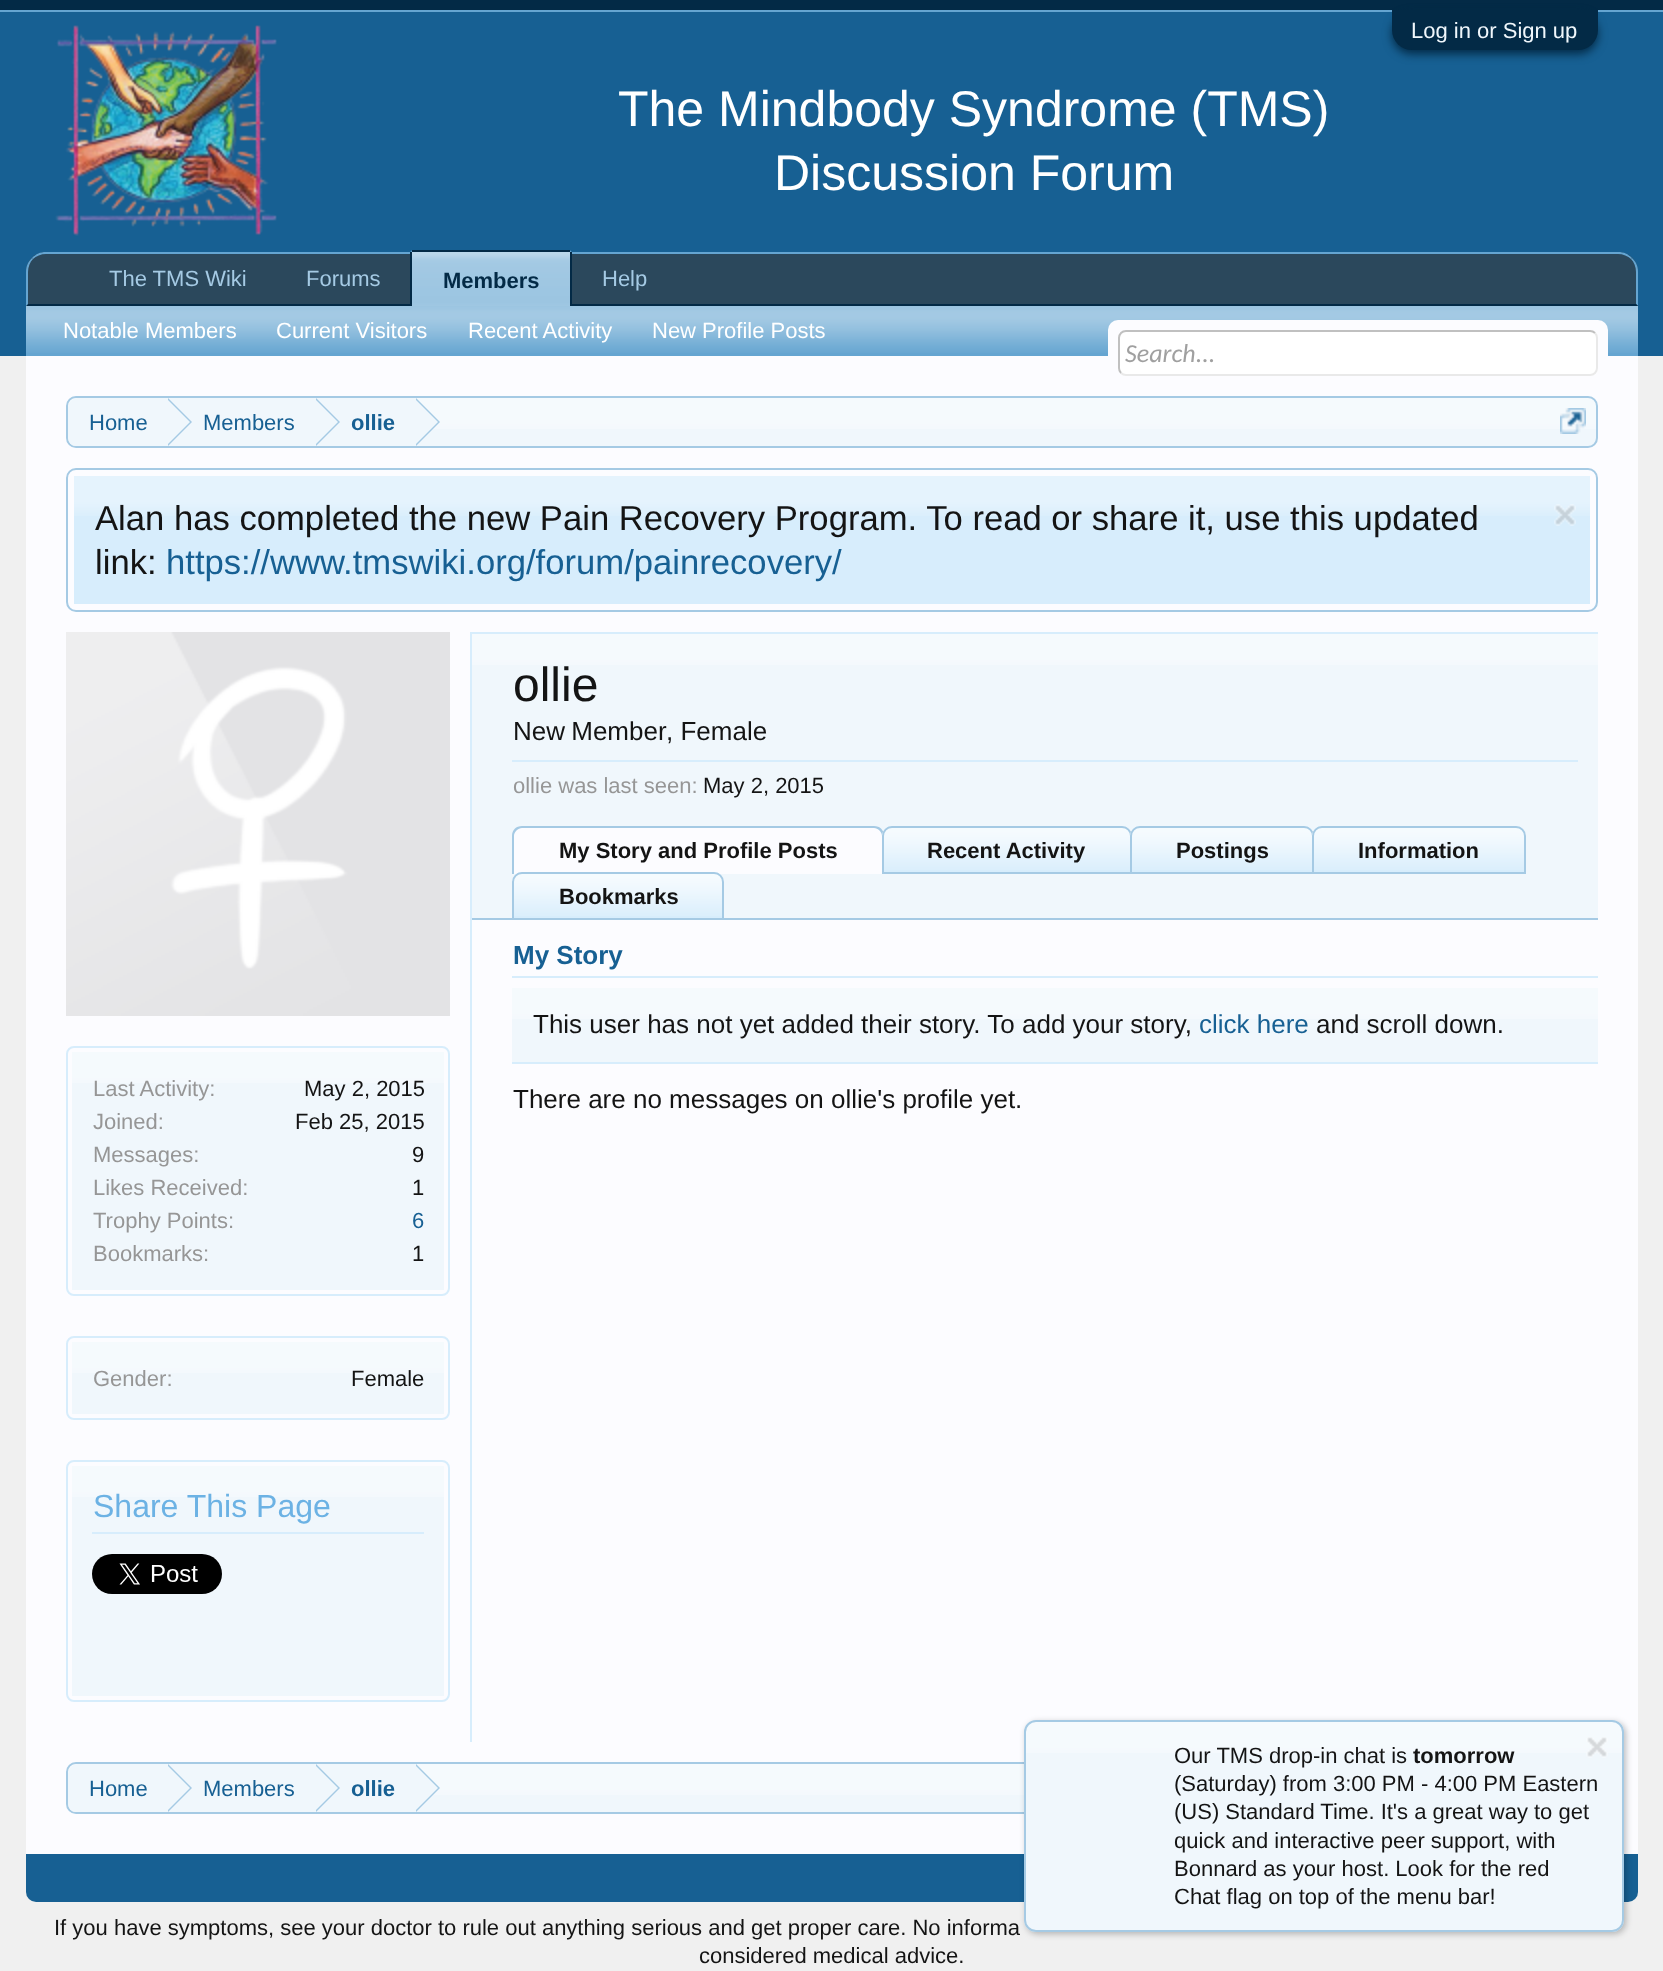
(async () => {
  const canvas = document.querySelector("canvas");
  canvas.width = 1663;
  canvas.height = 1971;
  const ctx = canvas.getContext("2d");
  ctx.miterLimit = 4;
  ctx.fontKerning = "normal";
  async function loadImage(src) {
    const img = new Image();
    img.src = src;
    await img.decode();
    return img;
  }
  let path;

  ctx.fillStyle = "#f0f0f0";
  ctx.fillRect(0, 0, 1663, 1971);
  for (const [x, y, w, h, color] of [
    [0, 0, 1663, 10, "#032a46"],
    [0, 10, 1663, 2, "#65a5d1"],
    [0, 12, 1663, 344, "#176093"],
  ]) {
    ctx.fillStyle = color;
    ctx.fillRect(x, y, w, h);
  }
  ctx.fillStyle = "#032a46";
  ctx.filter = "blur(5px)";
  ctx.beginPath();
  ctx.roundRect(1392, 14, 206, 40, 20);
  ctx.fill();
  ctx.filter = "none";
  ctx.beginPath();
  ctx.roundRect(1392, 10, 206, 40, [0, 0, 20, 20]);
  ctx.fill();
  ctx.drawImage(await loadImage("img/1.png"), 55, 25, 222, 211);
  ctx.fillStyle = "#2b485c";
  ctx.beginPath();
  ctx.roundRect(26, 252, 1612, 54, [20, 20, 0, 0]);
  ctx.fill();
  ctx.fillStyle = "#65a5d1";
  path = new Path2D("M46 252C40 252 36 254 32 258L33 259C36 256 41 254 46 254H1618C1623 254 1628 256 1631 259L1632 258C1628 254 1624 252 1618 252Z");
  ctx.fill(path);
  path = new Path2D("M1638 306V272C1638 266 1636 262 1632 258L1631 259C1634 262 1636 267 1636 272V304Z");
  ctx.fill(path);
  ctx.fillStyle = "#032a46";
  path = new Path2D("M1638 306L1636 304H28L26 306Z");
  ctx.fill(path);
  ctx.fillStyle = "#65a5d1";
  path = new Path2D("M26 306L28 304V272C28 267 30 262 33 259L32 258C28 262 26 266 26 272Z");
  ctx.fill(path);
  ctx.beginPath();
  ctx.roundRect(410, 250, 162, 56, [4, 4, 0, 0]);
  ctx.fill();
  ctx.drawImage(await loadImage("img/2.png"), 412, 252, 158, 54);
  for (const [x, y, w, h, color] of [
    [412, 250, 158, 2, "#032a46"],
    [570, 252, 2, 54, "#032a46"],
    [410, 252, 2, 54, "#032a46"],
    [26, 306, 1612, 50, "#65a5d1"],
  ]) {
    ctx.fillStyle = color;
    ctx.fillRect(x, y, w, h);
  }
  ctx.drawImage(await loadImage("img/3.png"), 26, 306, 1612, 47);
  ctx.fillStyle = "#fcfcff";
  ctx.fillRect(26, 356, 1612, 1498);
  ctx.beginPath();
  ctx.roundRect(1108, 320, 500, 56, 10);
  ctx.fill();
  ctx.fillStyle = "#ffffff";
  ctx.beginPath();
  ctx.roundRect(1118, 330, 480, 46, 8);
  ctx.fill();
  path = new Path2D("M1595 333C1596.5 334.5 1597 336 1597 338V368C1597 370 1596.5 371.5 1595 373C1593.5 374.5 1592 375 1590 375H1126C1124 375 1122.5 374.5 1121 373");
  ctx.strokeStyle = "#e9e9e9";
  ctx.lineWidth = 2;
  ctx.stroke(path);
  path = new Path2D("M1121 373C1119.5 371.5 1119 370 1119 368V338C1119 336 1119.5 334.5 1121 333C1122.5 331.5 1124 331 1126 331H1590C1592 331 1593.5 331.5 1595 333");
  ctx.strokeStyle = "#c0c0c0";
  ctx.stroke(path);
  ctx.fillStyle = "#f0f7fc";
  ctx.beginPath();
  ctx.roundRect(66, 396, 1532, 52, 10);
  ctx.fill();
  ctx.drawImage(await loadImage("img/4.png"), 66, 398, 1532, 31);
  ctx.beginPath();
  ctx.roundRect(67, 397, 1530, 50, 9);
  ctx.strokeStyle = "#a5cae4";
  ctx.stroke();
  ctx.save();
  ctx.beginPath();
  ctx.roundRect(68, 398, 1528, 48, 8);
  ctx.clip();
  ctx.beginPath();
  ctx.roundRect(68, 398, 100, 50, [10, 0, 0, 10]);
  ctx.fill();
  ctx.restore();
  ctx.fillRect(168, 398, 248, 31);
  ctx.fillStyle = "#a5cae4";
  path = new Path2D("M168 446V398L192 422Z");
  ctx.fill(path);
  ctx.fillStyle = "#f0f7fc";
  path = new Path2D("M166 446V398L190 422Z");
  ctx.fill(path);
  ctx.fillStyle = "#a5cae4";
  path = new Path2D("M316 446V398L340 422Z");
  ctx.fill(path);
  ctx.fillStyle = "#f0f7fc";
  path = new Path2D("M314 446V398L338 422Z");
  ctx.fill(path);
  ctx.fillStyle = "#a5cae4";
  path = new Path2D("M416 446V398L440 422Z");
  ctx.fill(path);
  ctx.fillStyle = "#f0f7fc";
  path = new Path2D("M414 446V398L438 422Z");
  ctx.fill(path);
  ctx.drawImage(await loadImage("img/5.png"), 1560, 408, 26, 26);
  ctx.beginPath();
  ctx.roundRect(67, 469, 1530, 142, 9);
  ctx.stroke();
  ctx.fillStyle = "#d7edfc";
  ctx.fillRect(74, 476, 1516, 128);
  ctx.drawImage(await loadImage("img/6.png"), 74, 476, 1516, 40);
  ctx.drawImage(await loadImage("img/7.png"), 1554, 504, 22, 22);
  ctx.fillRect(472, 632, 1126, 2);
  ctx.fillStyle = "#f0f7fc";
  ctx.fillRect(472, 634, 1126, 284);
  ctx.drawImage(await loadImage("img/8.png"), 472, 634, 1126, 31);
  ctx.fillStyle = "#d7edfc";
  ctx.fillRect(512, 760, 1066, 2);
  ctx.fillStyle = "#a5cae4";
  ctx.fillRect(472, 918, 1126, 2);
  ctx.fillStyle = "#fcfcff";
  ctx.beginPath();
  ctx.roundRect(512, 826, 372, 48, [10, 10, 0, 0]);
  ctx.fill();
  ctx.fillStyle = "#a5cae4";
  path = new Path2D("M522 826H874C880 826 884 830 884 836V874H512V836C512 830 516 826 522 826ZM522 828H874C878 828 882 832 882 836V874H514V836C514 832 518 828 522 828Z");
  ctx.fill(path, "evenodd");
  ctx.fillStyle = "#d7edfc";
  ctx.beginPath();
  ctx.roundRect(882, 826, 250, 48, [10, 10, 0, 0]);
  ctx.fill();
  ctx.drawImage(await loadImage("img/9.png"), 882, 828, 249, 42);
  ctx.beginPath();
  ctx.roundRect(883, 827, 248, 46, [9, 9, 0, 0]);
  ctx.stroke();
  ctx.beginPath();
  ctx.roundRect(1130, 826, 184, 48, [10, 10, 0, 0]);
  ctx.fill();
  ctx.drawImage(await loadImage("img/10.png"), 1130, 828, 183, 42);
  ctx.beginPath();
  ctx.roundRect(1131, 827, 182, 46, [9, 9, 0, 0]);
  ctx.stroke();
  ctx.beginPath();
  ctx.roundRect(1312, 826, 214, 48, [10, 10, 0, 0]);
  ctx.fill();
  ctx.drawImage(await loadImage("img/11.png"), 1312, 828, 214, 42);
  ctx.beginPath();
  ctx.roundRect(1313, 827, 212, 46, [9, 9, 0, 0]);
  ctx.stroke();
  ctx.beginPath();
  ctx.roundRect(512, 872, 212, 48, [10, 10, 0, 0]);
  ctx.fill();
  ctx.drawImage(await loadImage("img/12.png"), 512, 874, 212, 42);
  ctx.beginPath();
  ctx.roundRect(513, 873, 210, 46, [9, 9, 0, 0]);
  ctx.stroke();
  ctx.fillRect(512, 976, 1086, 2);
  ctx.fillStyle = "#f0f7fc";
  ctx.fillRect(512, 988, 1086, 74);
  ctx.drawImage(await loadImage("img/13.png"), 512, 988, 1086, 31);
  ctx.fillStyle = "#d7edfc";
  ctx.fillRect(512, 1062, 1086, 2);
  ctx.fillRect(470, 632, 2, 1110);
  ctx.drawImage(await loadImage("img/14.png"), 66, 632, 384, 384);
  ctx.beginPath();
  ctx.roundRect(67, 1047, 382, 248, 7);
  ctx.strokeStyle = "#d7edfc";
  ctx.stroke();
  ctx.fillStyle = "#f0f7fc";
  ctx.fillRect(72, 1052, 372, 238);
  ctx.drawImage(await loadImage("img/15.png"), 72, 1052, 372, 31);
  ctx.beginPath();
  ctx.roundRect(67, 1337, 382, 82, 7);
  ctx.stroke();
  ctx.fillRect(72, 1342, 372, 72);
  ctx.drawImage(await loadImage("img/15.png"), 72, 1342, 372, 31);
  ctx.beginPath();
  ctx.roundRect(67, 1461, 382, 240, 7);
  ctx.stroke();
  ctx.fillRect(72, 1466, 372, 230);
  ctx.drawImage(await loadImage("img/15.png"), 72, 1466, 372, 31);
  ctx.fillStyle = "#d7edfc";
  ctx.fillRect(92, 1532, 332, 2);
  ctx.drawImage(await loadImage("img/16.png"), 92, 1554, 130, 40);
  ctx.fillStyle = "#f0f7fc";
  ctx.beginPath();
  ctx.roundRect(66, 1762, 1532, 52, 10);
  ctx.fill();
  ctx.drawImage(await loadImage("img/17.png"), 66, 1764, 958, 31);
  ctx.beginPath();
  ctx.roundRect(67, 1763, 1530, 50, 9);
  ctx.strokeStyle = "#a5cae4";
  ctx.stroke();
  ctx.save();
  ctx.beginPath();
  ctx.roundRect(68, 1764, 1528, 48, 8);
  ctx.clip();
  ctx.beginPath();
  ctx.roundRect(68, 1764, 100, 50, [10, 0, 0, 10]);
  ctx.fill();
  ctx.restore();
  ctx.fillRect(168, 1764, 248, 31);
  ctx.fillStyle = "#a5cae4";
  path = new Path2D("M168 1812V1764L192 1788Z");
  ctx.fill(path);
  ctx.fillStyle = "#f0f7fc";
  path = new Path2D("M166 1812V1764L190 1788Z");
  ctx.fill(path);
  ctx.fillStyle = "#a5cae4";
  path = new Path2D("M316 1812V1764L340 1788Z");
  ctx.fill(path);
  ctx.fillStyle = "#f0f7fc";
  path = new Path2D("M314 1812V1764L338 1788Z");
  ctx.fill(path);
  ctx.fillStyle = "#a5cae4";
  path = new Path2D("M416 1812V1764L440 1788Z");
  ctx.fill(path);
  ctx.fillStyle = "#f0f7fc";
  path = new Path2D("M414 1812V1764L438 1788Z");
  ctx.fill(path);
  ctx.fillStyle = "#176093";
  ctx.beginPath();
  ctx.roundRect(26, 1854, 1612, 48, [0, 0, 10, 10]);
  ctx.fill();
  ctx.fillStyle = "rgba(0, 0, 0, 0.25)";
  ctx.filter = "blur(3px)";
  ctx.beginPath();
  ctx.roundRect(1026, 1722, 600, 212, 12);
  ctx.fill();
  ctx.filter = "none";
  ctx.fillStyle = "#f0f7fc";
  ctx.beginPath();
  ctx.roundRect(1024, 1720, 600, 212, 12);
  ctx.fill();
  ctx.drawImage(await loadImage("img/18.png"), 1024, 1722, 600, 31);
  ctx.beginPath();
  ctx.roundRect(1025, 1721, 598, 210, 11);
  ctx.stroke();
  ctx.drawImage(await loadImage("img/19.png"), 1586, 1737, 22, 21);
  ctx.font = "22px Liberation Sans";
  ctx.fillText("Log in or Sign up", 1411, 38);
  ctx.font = "50px Liberation Sans";
  ctx.fillStyle = "#ffffff";
  ctx.fillText("The Mindbody Syndrome (TMS)", 618, 126);
  ctx.fillText("Discussion Forum", 774, 190);
  ctx.font = "22px Liberation Sans";
  ctx.fillStyle = "#a5cae4";
  for (const [text, x, y] of [
    ["The TMS Wiki", 109, 286],
    ["Forums", 306, 286],
    ["Help", 602, 286],
  ]) {
    ctx.fillText(text, x, y);
  }
  ctx.font = "bold 22px Liberation Sans";
  ctx.fillStyle = "#032a46";
  ctx.fillText("Members", 443, 288);
  ctx.font = "22px Liberation Sans";
  ctx.fillStyle = "#ffffff";
  for (const [text, x, y] of [
    ["Notable Members", 63, 338],
    ["Current Visitors", 276, 338],
    ["Recent Activity", 468, 338],
    ["New Profile Posts", 652, 338],
  ]) {
    ctx.fillText(text, x, y);
  }
  ctx.font = "italic 26px Carlito";
  ctx.fillStyle = "#a0a0a0";
  ctx.fillText("Search...", 1125, 362);
  ctx.font = "22px Liberation Sans";
  ctx.fillStyle = "#176093";
  ctx.fillText("Home", 89, 430);
  ctx.fillText("Members", 203, 430);
  ctx.font = "bold 22px Liberation Sans";
  ctx.fillText("ollie", 351, 430);
  ctx.font = "34.65px Liberation Sans";
  ctx.fillStyle = "#141414";
  ctx.fillText("Alan has completed the new Pain Recovery Program. To read or share it, use this updated", 95, 530);
  ctx.fillText("link:", 95, 574);
  ctx.fillStyle = "#176093";
  ctx.fillText("https://www.tmswiki.org/forum/painrecovery/", 166, 574);
  ctx.font = "48px Liberation Sans";
  ctx.fillStyle = "#141414";
  ctx.fillText("ollie", 513, 701);
  ctx.wordSpacing = "-1px";
  ctx.font = "26px Liberation Sans";
  ctx.fillText("New Member", 513, 740);
  ctx.wordSpacing = "0px";
  ctx.fillText(", Female", 666, 740);
  ctx.font = "22px Liberation Sans";
  ctx.fillStyle = "#969696";
  ctx.fillText("ollie was last seen:", 513, 793);
  ctx.fillStyle = "#141414";
  ctx.fillText("May 2, 2015", 703, 793);
  ctx.font = "bold 22px Liberation Sans";
  for (const [text, x, y] of [
    ["My Story and Profile Posts", 559, 858],
    ["Recent Activity", 927, 858],
    ["Postings", 1176, 858],
    ["Information", 1358, 858],
    ["Bookmarks", 559, 904],
  ]) {
    ctx.fillText(text, x, y);
  }
  ctx.font = "bold 26px Liberation Sans";
  ctx.fillStyle = "#176093";
  ctx.fillText("My Story", 513, 964);
  ctx.font = "26px Liberation Sans";
  ctx.fillStyle = "#141414";
  ctx.fillText("This user has not yet added their story. To add your story,", 533, 1033);
  ctx.fillStyle = "#176093";
  ctx.fillText("click here", 1199, 1033);
  ctx.fillStyle = "#141414";
  ctx.fillText("and scroll down.", 1316, 1033);
  ctx.fillText("There are no messages on ollie's profile yet.", 513, 1108);
  ctx.font = "22px Liberation Sans";
  ctx.fillStyle = "#969696";
  ctx.fillText("Last Activity:", 93, 1096);
  ctx.fillStyle = "#141414";
  ctx.fillText("May 2, 2015", 304, 1096);
  ctx.fillStyle = "#969696";
  ctx.fillText("Joined:", 93, 1129);
  ctx.fillStyle = "#141414";
  ctx.fillText("Feb 25, 2015", 295, 1129);
  ctx.fillStyle = "#969696";
  ctx.fillText("Messages:", 93, 1162);
  ctx.fillStyle = "#141414";
  ctx.fillText("9", 412, 1162);
  ctx.fillStyle = "#969696";
  ctx.fillText("Likes Received:", 93, 1195);
  ctx.fillStyle = "#141414";
  ctx.fillText("1", 412, 1195);
  ctx.fillStyle = "#969696";
  ctx.fillText("Trophy Points:", 93, 1228);
  ctx.fillStyle = "#176093";
  ctx.fillText("6", 412, 1228);
  ctx.fillStyle = "#969696";
  ctx.fillText("Bookmarks:", 93, 1261);
  ctx.fillStyle = "#141414";
  ctx.fillText("1", 412, 1261);
  ctx.fillStyle = "#969696";
  ctx.fillText("Gender:", 93, 1386);
  ctx.fillStyle = "#141414";
  ctx.fillText("Female", 351, 1386);
  ctx.font = "32px Liberation Sans";
  ctx.fillStyle = "#6cb2e4";
  ctx.fillText("Share This Page", 93, 1517);
  ctx.font = "22px Liberation Sans";
  ctx.fillStyle = "#176093";
  ctx.fillText("Home", 89, 1796);
  ctx.fillText("Members", 203, 1796);
  ctx.font = "bold 22px Liberation Sans";
  ctx.fillText("ollie", 351, 1796);
  ctx.font = "22px Liberation Sans";
  ctx.fillStyle = "#141414";
  ctx.fillText("Our TMS drop-in chat is", 1174, 1763);
  ctx.font = "bold 22px Liberation Sans";
  ctx.fillText("tomorrow", 1413, 1763);
  ctx.font = "22px Liberation Sans";
  for (const [text, x, y] of [
    ["(Saturday) from 3:00 PM - 4:00 PM Eastern", 1174, 1791],
    ["(US) Standard Time. It's a great way to get", 1174, 1819],
    ["quick and interactive peer support, with", 1174, 1848],
    ["Bonnard as your host. Look for the red", 1174, 1876],
    ["Chat flag on top of the menu bar!", 1174, 1904],
    ["If you have symptoms, see your doctor to rule out anything serious and get proper care. No informa", 54, 1935],
    ["considered medical advice.", 699, 1963],
  ]) {
    ctx.fillText(text, x, y);
  }
})();
